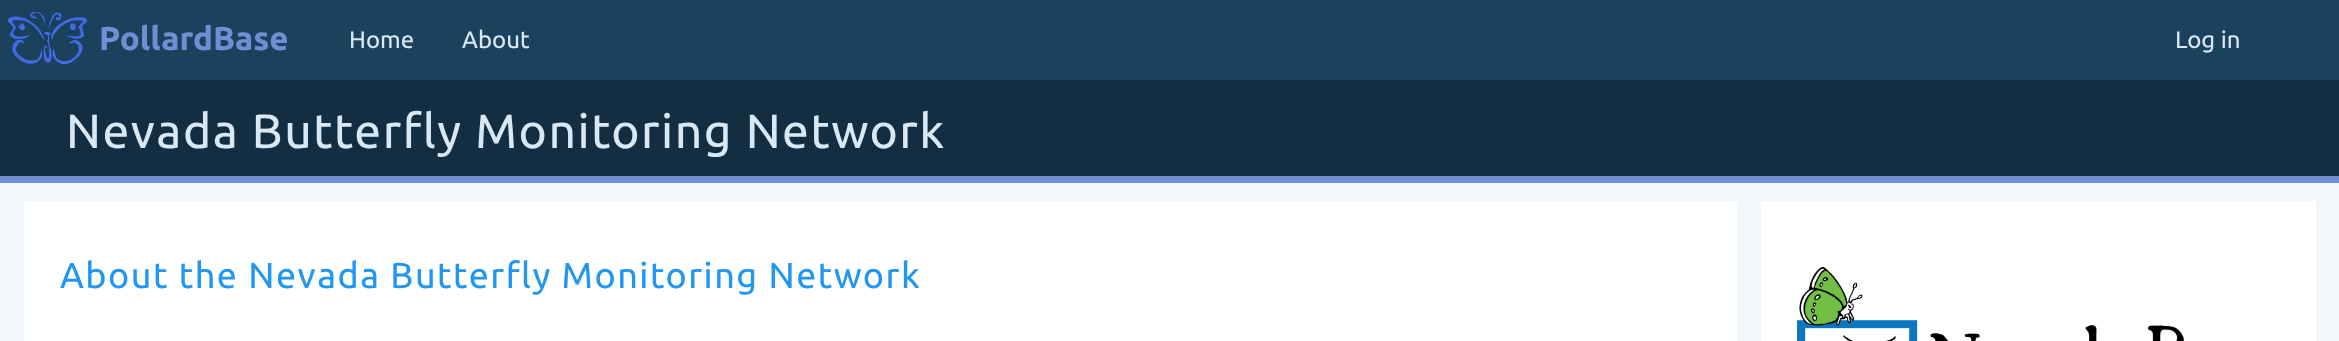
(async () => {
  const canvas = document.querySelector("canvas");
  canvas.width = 2339;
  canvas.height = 341;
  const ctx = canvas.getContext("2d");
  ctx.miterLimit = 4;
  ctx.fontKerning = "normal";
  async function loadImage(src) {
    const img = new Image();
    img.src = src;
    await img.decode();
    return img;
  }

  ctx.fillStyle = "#1b415d";
  ctx.fillRect(0, 0, 2339, 341);
  ctx.drawImage(await loadImage("img/1.png"), 7, 11, 80, 54);
  for (const [x, y, w, h, color] of [
    [0, 80, 2339, 96, "#132e43"],
    [0, 176, 2339, 7, "#6f8fd4"],
    [0, 183, 2339, 158, "#f2f7fb"],
    [24, 201, 1713, 140, "#ffffff"],
    [1761, 201, 555, 140, "#ffffff"],
  ]) {
    ctx.fillStyle = color;
    ctx.fillRect(x, y, w, h);
  }
  ctx.drawImage(await loadImage("img/2.png"), 1797, 267, 387, 74);
  ctx.font = "bold 33px Ubuntu";
  ctx.fillStyle = "#6f8fd4";
  ctx.fillText("PollardBase", 99, 50);
  ctx.font = "24px Ubuntu";
  ctx.fillStyle = "#d8e8f4";
  for (const [text, x, y] of [
    ["Home", 349, 48],
    ["About", 462, 48],
    ["Log in", 2175, 48],
  ]) {
    ctx.fillText(text, x, y);
  }
  ctx.letterSpacing = "1.5px";
  ctx.font = "48px Ubuntu";
  ctx.fillText("Nevada Butterfly Monitoring Network", 66, 148);
  ctx.font = "36px Ubuntu";
  ctx.fillStyle = "#2196f3";
  ctx.fillText("About the Nevada Butterfly Monitoring Network", 60, 288);
})();
